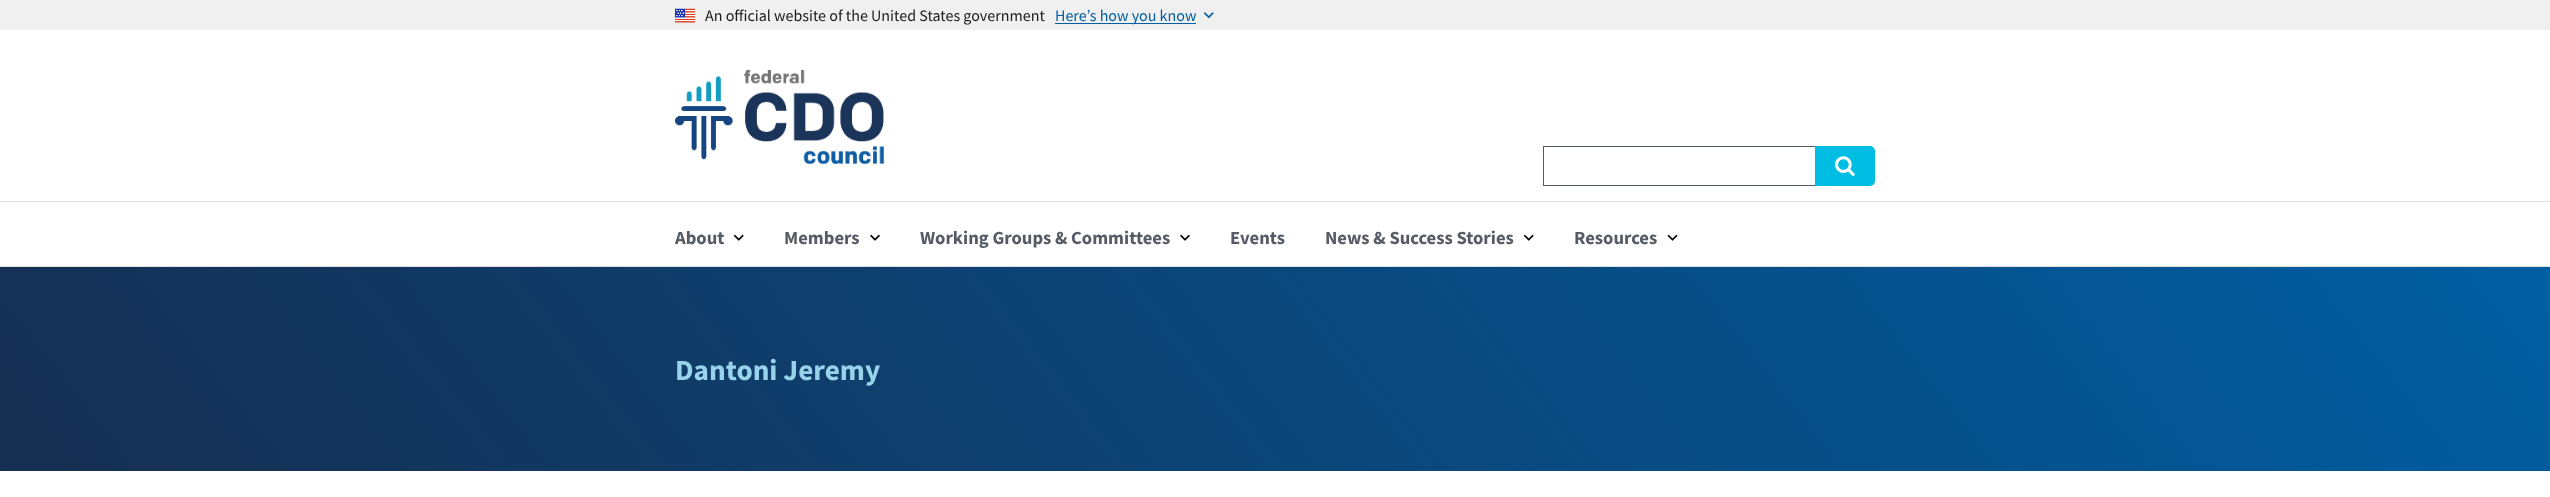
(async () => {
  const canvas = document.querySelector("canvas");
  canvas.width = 2550;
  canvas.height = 497;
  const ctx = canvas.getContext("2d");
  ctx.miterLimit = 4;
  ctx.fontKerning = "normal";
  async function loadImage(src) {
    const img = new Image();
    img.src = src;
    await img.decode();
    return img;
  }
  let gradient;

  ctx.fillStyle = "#ffffff";
  ctx.fillRect(0, 0, 2550, 497);
  ctx.fillStyle = "#f0f0f0";
  ctx.fillRect(0, 0, 2550, 30);
  ctx.drawImage(await loadImage("img/1.png"), 675, 8, 20, 15);
  ctx.fillStyle = "#005ea2";
  ctx.fillRect(1055, 23, 141, 1);
  ctx.drawImage(await loadImage("img/2.png"), 1203, 12, 11, 7);
  ctx.drawImage(await loadImage("img/3.png"), 675, 70, 209, 94);
  for (const [x, y, w, h, color] of [
    [0, 201, 2550, 1, "#dfe1e2"],
    [1543, 146, 272, 1, "#565c65"],
    [1543, 185, 272, 1, "#565c65"],
    [1543, 146, 1, 40, "#565c65"],
  ]) {
    ctx.fillStyle = color;
    ctx.fillRect(x, y, w, h);
  }
  ctx.fillStyle = "#00bde3";
  ctx.beginPath();
  ctx.roundRect(1815, 146, 60, 40, [0, 5, 5, 0]);
  ctx.fill();
  ctx.drawImage(await loadImage("img/4.png"), 1835, 156, 20, 20);
  ctx.drawImage(await loadImage("img/5.png"), 733, 234, 11, 7);
  ctx.drawImage(await loadImage("img/6.png"), 870, 234, 10, 7);
  ctx.drawImage(await loadImage("img/6.png"), 1180, 234, 10, 7);
  ctx.drawImage(await loadImage("img/5.png"), 1523, 234, 11, 7);
  ctx.drawImage(await loadImage("img/7.png"), 1667, 234, 11, 7);
  gradient = ctx.createLinearGradient(434, 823, 2116, -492);
  gradient.addColorStop(0, "#162e51");
  gradient.addColorStop(1, "#005ea2");
  ctx.fillStyle = gradient;
  ctx.fillRect(0, 267, 2550, 1);
  gradient = ctx.createLinearGradient(434, 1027, 2116, -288);
  gradient.addColorStop(0, "#162e51");
  gradient.addColorStop(1, "#005ea2");
  ctx.fillStyle = gradient;
  ctx.fillRect(0, 268, 2550, 203);
  ctx.fillStyle = "#dfe1e2";
  ctx.fillRect(0, 266, 2550, 1);
  ctx.font = "16px Source Sans Pro";
  ctx.fillStyle = "#1b1b1b";
  ctx.fillText("An official website of the United States government", 705, 21);
  ctx.fillStyle = "#005ea2";
  ctx.fillText("Here’s how you know", 1055, 21);
  ctx.font = "bold 18.6px Source Sans Pro";
  ctx.fillStyle = "#565c65";
  for (const [text, x, y] of [
    ["About", 675, 244],
    ["Members", 784, 244],
    ["Working Groups & Committees", 920, 244],
    ["Events", 1230, 244],
    ["News & Success Stories", 1325, 244],
    ["Resources", 1574, 244],
  ]) {
    ctx.fillText(text, x, y);
  }
  ctx.font = "bold 29.25px Source Sans Pro";
  ctx.fillStyle = "#97d4ea";
  ctx.fillText("Dantoni Jeremy", 675, 380);
})();
